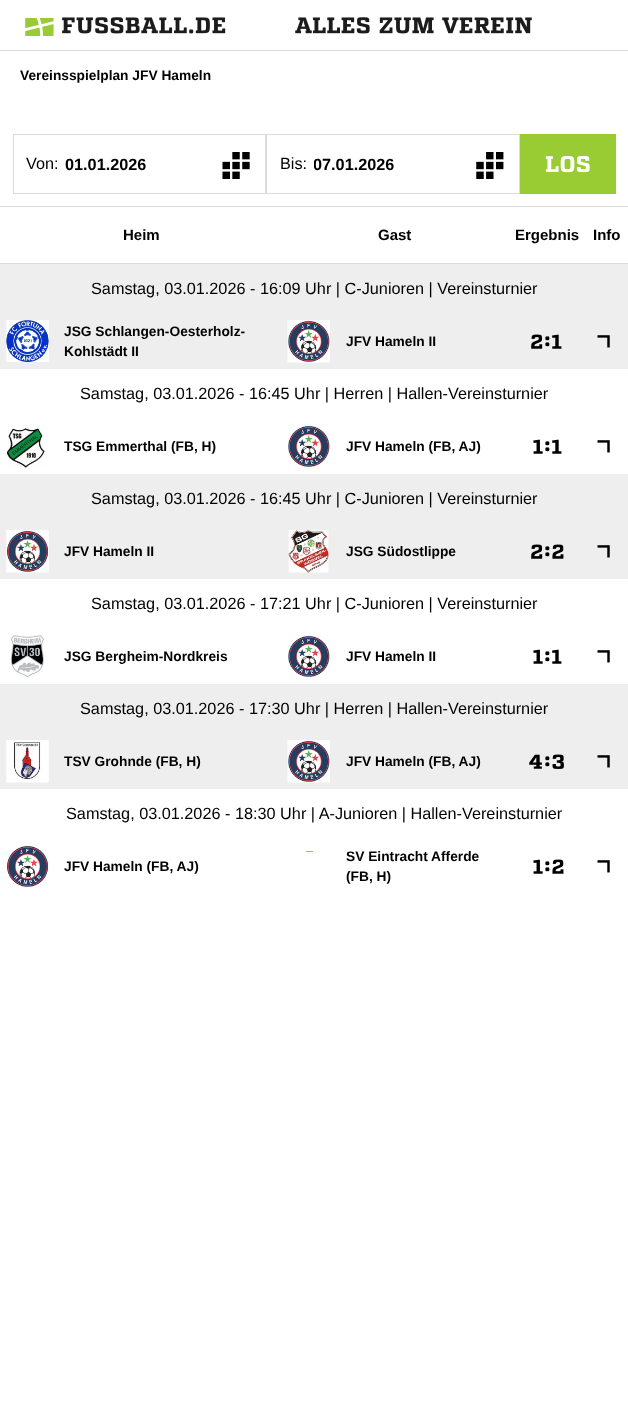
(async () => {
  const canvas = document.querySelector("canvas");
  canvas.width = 628;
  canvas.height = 1412;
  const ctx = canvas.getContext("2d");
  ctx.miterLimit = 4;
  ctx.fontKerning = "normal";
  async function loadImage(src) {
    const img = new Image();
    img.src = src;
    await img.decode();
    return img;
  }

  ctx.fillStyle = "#ffffff";
  ctx.fillRect(0, 0, 628, 1412);
  ctx.fillStyle = "#dbdbdb";
  ctx.fillRect(0, 50, 628, 1);
  ctx.drawImage(await loadImage("img/1.png"), 25, 18, 29, 18);
  ctx.drawImage(await loadImage("img/2.png"), 62, 17, 164, 17);
  ctx.drawImage(await loadImage("img/3.png"), 295, 17, 237, 17);
  ctx.strokeStyle = "#dbdbdb";
  ctx.strokeRect(13.5, 134.5, 252, 59);
  ctx.drawImage(await loadImage("img/4.png"), 222, 152, 28, 27);
  ctx.strokeRect(266.5, 134.5, 253, 59);
  ctx.drawImage(await loadImage("img/5.png"), 476, 152, 28, 27);
  ctx.fillStyle = "#99cc33";
  ctx.fillRect(520, 134, 96, 60);
  ctx.drawImage(await loadImage("img/6.png"), 545, 156, 45, 17);
  for (const [x, y, w, h, color] of [
    [0, 206, 628, 1, "#dbdbdb"],
    [0, 263, 628, 1, "#dbdbdb"],
    [0, 264, 628, 50, "#eeeeee"],
    [0, 314, 628, 55, "#eeeeee"],
  ]) {
    ctx.fillStyle = color;
    ctx.fillRect(x, y, w, h);
  }
  ctx.drawImage(await loadImage("img/7.png"), 6, 320, 43, 42);
  ctx.drawImage(await loadImage("img/8.png"), 287, 320, 43, 43);
  ctx.drawImage(await loadImage("img/9.png"), 531, 334, 12, 15);
  ctx.drawImage(await loadImage("img/10.png"), 545, 336, 5, 11);
  ctx.drawImage(await loadImage("img/11.png"), 552, 334, 10, 15);
  ctx.drawImage(await loadImage("img/12.png"), 597, 335, 13, 13);
  ctx.drawImage(await loadImage("img/13.png"), 7, 428, 38, 40);
  ctx.drawImage(await loadImage("img/14.png"), 288, 425, 42, 42);
  ctx.drawImage(await loadImage("img/15.png"), 533, 439, 10, 15);
  ctx.drawImage(await loadImage("img/16.png"), 545, 441, 5, 11);
  ctx.drawImage(await loadImage("img/17.png"), 552, 439, 10, 15);
  ctx.drawImage(await loadImage("img/18.png"), 597, 440, 13, 13);
  ctx.fillRect(0, 474, 628, 50);
  ctx.fillRect(0, 524, 628, 55);
  ctx.drawImage(await loadImage("img/19.png"), 6, 530, 43, 43);
  ctx.drawImage(await loadImage("img/20.png"), 288, 530, 41, 43);
  ctx.drawImage(await loadImage("img/9.png"), 531, 544, 12, 15);
  ctx.drawImage(await loadImage("img/10.png"), 545, 546, 5, 11);
  ctx.drawImage(await loadImage("img/21.png"), 552, 544, 12, 15);
  ctx.drawImage(await loadImage("img/12.png"), 597, 545, 13, 13);
  ctx.drawImage(await loadImage("img/22.png"), 10, 635, 34, 43);
  ctx.drawImage(await loadImage("img/14.png"), 288, 635, 42, 42);
  ctx.drawImage(await loadImage("img/15.png"), 533, 649, 10, 15);
  ctx.drawImage(await loadImage("img/16.png"), 545, 651, 5, 11);
  ctx.drawImage(await loadImage("img/17.png"), 552, 649, 10, 15);
  ctx.drawImage(await loadImage("img/18.png"), 597, 650, 13, 13);
  ctx.fillRect(0, 684, 628, 50);
  ctx.fillRect(0, 734, 628, 55);
  ctx.drawImage(await loadImage("img/23.png"), 6, 740, 43, 43);
  ctx.drawImage(await loadImage("img/24.png"), 287, 740, 43, 43);
  ctx.drawImage(await loadImage("img/25.png"), 529, 754, 13, 15);
  ctx.drawImage(await loadImage("img/10.png"), 545, 756, 5, 11);
  ctx.drawImage(await loadImage("img/26.png"), 552, 754, 12, 15);
  ctx.drawImage(await loadImage("img/12.png"), 597, 755, 13, 13);
  ctx.drawImage(await loadImage("img/27.png"), 7, 845, 42, 42);
  ctx.fillStyle = "#99cc33";
  ctx.fillRect(306, 851, 7, 1);
  ctx.drawImage(await loadImage("img/15.png"), 533, 859, 10, 15);
  ctx.drawImage(await loadImage("img/16.png"), 545, 861, 5, 11);
  ctx.drawImage(await loadImage("img/28.png"), 552, 859, 12, 15);
  ctx.drawImage(await loadImage("img/18.png"), 597, 860, 13, 13);
  ctx.font = "bold 13.75px Liberation Sans";
  ctx.fillStyle = "#000000";
  ctx.fillText("Vereinsspielplan JFV Hameln", 20, 80);
  ctx.font = "16.25px Liberation Sans";
  ctx.fillText("Von:", 26, 169);
  ctx.font = "bold 16.25px Liberation Sans";
  ctx.fillText("01.01.2026", 65, 170);
  ctx.font = "16.25px Liberation Sans";
  ctx.fillText("Bis:", 280, 169);
  ctx.save();
  ctx.beginPath();
  ctx.rect(314, 155, 150, 19);
  ctx.clip();
  ctx.font = "bold 16.25px Liberation Sans";
  ctx.fillText("07.01.2026", 313, 170);
  ctx.restore();
  ctx.font = "bold 15px Liberation Sans";
  for (const [text, x, y] of [
    ["Heim", 123, 240],
    ["Gast", 378, 240],
    ["Ergebnis", 515, 240],
    ["Info", 593, 240],
  ]) {
    ctx.fillText(text, x, y);
  }
  ctx.font = "16.25px Liberation Sans";
  ctx.fillText("Samstag, 03.01.2026 - 16:09 Uhr | C-Junioren | Vereinsturnier", 91, 294);
  ctx.font = "bold 13.75px Liberation Sans";
  for (const [text, x, y] of [
    ["JSG Schlangen-Oesterholz-", 64, 336],
    ["Kohlstädt II", 64, 356],
    ["JFV Hameln II", 346, 346],
  ]) {
    ctx.fillText(text, x, y);
  }
  ctx.font = "16.25px Liberation Sans";
  ctx.fillText("Samstag, 03.01.2026 - 16:45 Uhr | Herren | Hallen-Vereinsturnier", 80, 399);
  ctx.font = "bold 13.75px Liberation Sans";
  ctx.fillText("TSG Emmerthal (FB, H)", 64, 451);
  ctx.fillText("JFV Hameln (FB, AJ)", 346, 451);
  ctx.font = "16.25px Liberation Sans";
  ctx.fillText("Samstag, 03.01.2026 - 16:45 Uhr | C-Junioren | Vereinsturnier", 91, 504);
  ctx.font = "bold 13.75px Liberation Sans";
  ctx.fillText("JFV Hameln II", 64, 556);
  ctx.fillText("JSG Südostlippe", 346, 556);
  ctx.font = "16.25px Liberation Sans";
  ctx.fillText("Samstag, 03.01.2026 - 17:21 Uhr | C-Junioren | Vereinsturnier", 91, 609);
  ctx.font = "bold 13.75px Liberation Sans";
  ctx.fillText("JSG Bergheim-Nordkreis", 64, 661);
  ctx.fillText("JFV Hameln II", 346, 661);
  ctx.font = "16.25px Liberation Sans";
  ctx.fillText("Samstag, 03.01.2026 - 17:30 Uhr | Herren | Hallen-Vereinsturnier", 80, 714);
  ctx.font = "bold 13.75px Liberation Sans";
  ctx.fillText("TSV Grohnde (FB, H)", 64, 766);
  ctx.fillText("JFV Hameln (FB, AJ)", 346, 766);
  ctx.font = "16.25px Liberation Sans";
  ctx.fillText("Samstag, 03.01.2026 - 18:30 Uhr | A-Junioren | Hallen-Vereinsturnier", 66, 819);
  ctx.font = "bold 13.75px Liberation Sans";
  for (const [text, x, y] of [
    ["JFV Hameln (FB, AJ)", 64, 871],
    ["SV Eintracht Afferde", 346, 861],
    ["(FB, H)", 346, 881],
  ]) {
    ctx.fillText(text, x, y);
  }
})();
